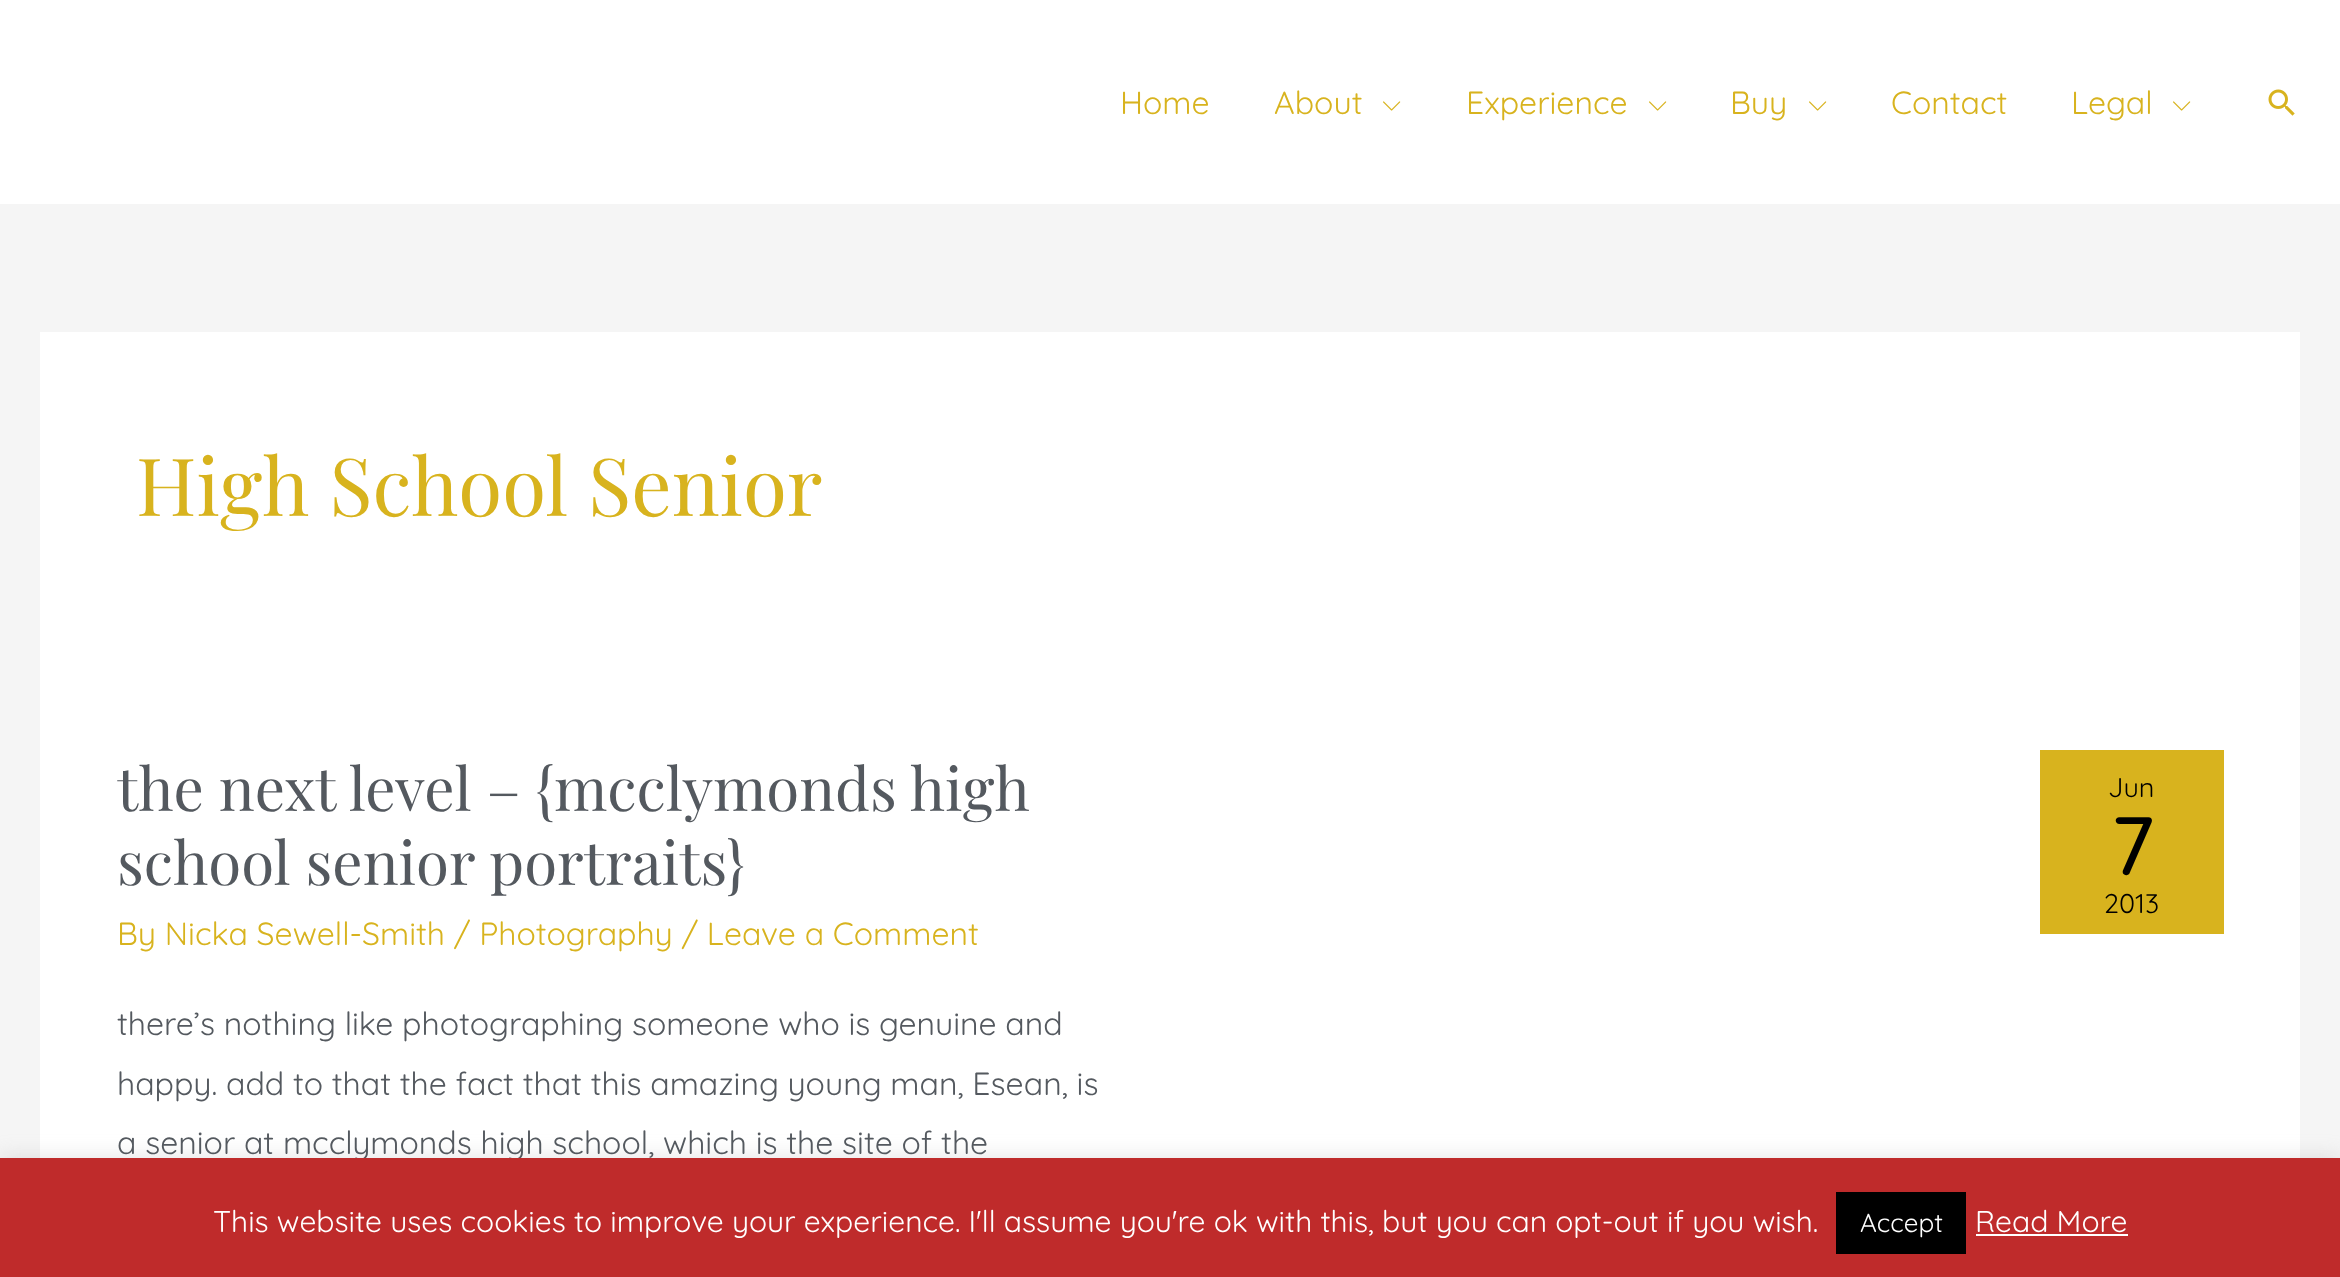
(async () => {
  const canvas = document.querySelector("canvas");
  canvas.width = 2340;
  canvas.height = 1277;
  const ctx = canvas.getContext("2d");
  ctx.miterLimit = 4;
  ctx.fontKerning = "normal";
  async function loadImage(src) {
    const img = new Image();
    img.src = src;
    await img.decode();
    return img;
  }

  ctx.fillStyle = "#f5f5f5";
  ctx.fillRect(0, 0, 2340, 1277);
  ctx.fillStyle = "#ffffff";
  ctx.fillRect(0, 0, 2340, 204);
  ctx.drawImage(await loadImage("img/1.png"), 1383, 101, 18, 10);
  ctx.drawImage(await loadImage("img/1.png"), 1649, 101, 18, 10);
  ctx.drawImage(await loadImage("img/1.png"), 1809, 101, 18, 10);
  ctx.drawImage(await loadImage("img/1.png"), 2173, 101, 18, 10);
  ctx.drawImage(await loadImage("img/2.png"), 2268, 89, 27, 27);
  ctx.fillRect(40, 332, 2260, 826);
  ctx.fillStyle = "#d8b31e";
  ctx.fillRect(2040, 750, 184, 184);
  ctx.fillStyle = "rgba(172, 171, 171, 0.3)";
  ctx.filter = "blur(10px)";
  ctx.beginPath();
  ctx.rect(0, 1156, 2340, 120);
  ctx.fill();
  ctx.filter = "none";
  ctx.font = "300 32px Quicksand";
  ctx.fillStyle = "#d8b31e";
  for (const [text, x, y] of [
    ["Home", 1120, 114],
    ["About", 1274, 114],
    ["Experience", 1466, 114],
    ["Buy", 1730, 114],
    ["Contact", 1891, 114],
    ["Legal", 2071, 114],
  ]) {
    ctx.fillText(text, x, y);
  }
  ctx.font = "80px Playfair Display";
  ctx.fillText("High School Senior", 136, 516);
  ctx.font = "60px Playfair Display";
  ctx.fillStyle = "#54595f";
  ctx.fillText("the next level – {mcclymonds high", 117, 811);
  ctx.fillText("school senior portraits}", 117, 885);
  ctx.font = "300 32px Quicksand";
  ctx.fillStyle = "#d8b31e";
  ctx.fillText("By Nicka Sewell-Smith / Photography / Leave a Comment", 117, 945);
  ctx.fillStyle = "#54595f";
  for (const [text, x, y] of [
    ["there’s nothing like photographing someone who is genuine and", 117, 1035],
    ["happy. add to that the fact that this amazing young man, Esean, is", 117, 1095],
    ["a senior at mcclymonds high school, which is the site of the", 117, 1154],
  ]) {
    ctx.fillText(text, x, y);
  }
  ctx.font = "300 27px Quicksand";
  ctx.fillStyle = "#000000";
  ctx.fillText("Jun", 2108, 797);
  ctx.font = "bold 80px Quicksand";
  ctx.fillText("7", 2111, 875);
  ctx.font = "300 27px Quicksand";
  ctx.fillText("2013", 2104, 913);
  ctx.fillStyle = "#bf2b2b";
  ctx.fillRect(0, 1158, 2340, 119);
  ctx.font = "300 30px Quicksand";
  ctx.fillStyle = "#ffffff";
  ctx.fillText("This website uses cookies to improve your experience. I'll assume you're ok with this, but you can opt-out if you wish.", 213, 1232);
  ctx.fillStyle = "#000000";
  ctx.fillRect(1836, 1192, 130, 62);
  ctx.font = "300 26px Quicksand";
  ctx.fillStyle = "#ffffff";
  ctx.fillText("Accept", 1860, 1232);
  ctx.font = "300 30px Quicksand";
  ctx.fillText("Read More", 1975, 1232);
  ctx.fillRect(1976, 1234, 152, 2);
})();
